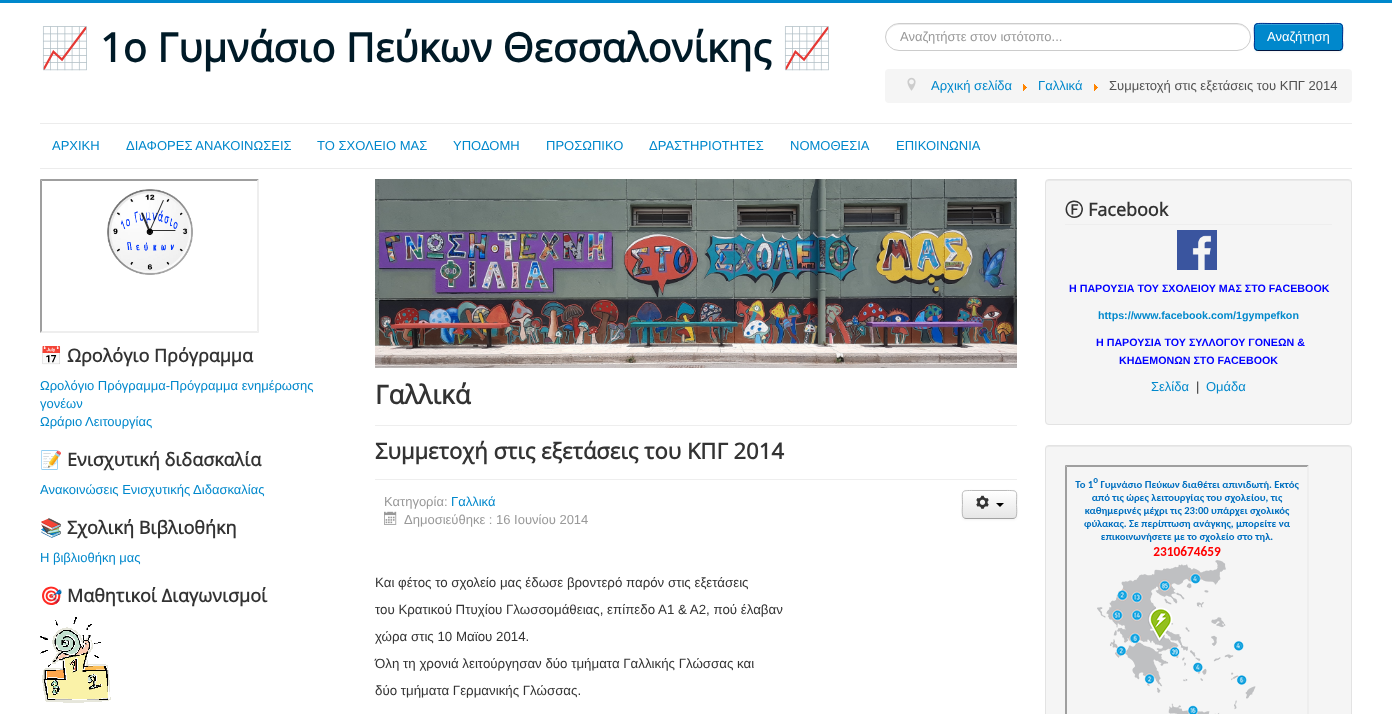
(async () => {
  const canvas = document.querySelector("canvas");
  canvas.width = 1392;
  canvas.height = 714;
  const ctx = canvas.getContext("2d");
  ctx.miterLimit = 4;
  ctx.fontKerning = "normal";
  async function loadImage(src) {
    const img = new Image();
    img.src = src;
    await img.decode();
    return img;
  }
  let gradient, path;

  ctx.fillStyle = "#ffffff";
  ctx.fillRect(0, 0, 1392, 714);
  ctx.fillStyle = "#0088cc";
  ctx.fillRect(0, 0, 1392, 3);
  ctx.fillStyle = "#ececec";
  path = new Path2D("M899 25H1237C1244 25 1250 31 1250 38C1250 32 1247 27 1242 25L1237 24H899L894 25C889 27 886 32 886 38C886 31 892 25 899 25Z");
  ctx.fill(path);
  ctx.beginPath();
  ctx.roundRect(885.5, 23.5, 365, 27, 13.5);
  ctx.strokeStyle = "#cccccc";
  ctx.stroke();
  ctx.fillStyle = "rgba(0, 0, 0, 0.05)";
  ctx.filter = "blur(1px)";
  ctx.beginPath();
  ctx.roundRect(1254, 24, 89, 28, 4);
  ctx.fill();
  ctx.filter = "none";
  ctx.fillStyle = "#0088cc";
  ctx.beginPath();
  ctx.roundRect(1254, 23, 89, 28, 4);
  ctx.fill();
  ctx.fillStyle = "#33a0d6";
  path = new Path2D("M1258 25H1339C1341 25 1342 26 1342 28C1342 20 1329 24 1326 24H1272C1268 24 1255 20 1255 28C1255 26 1256 25 1258 25Z");
  ctx.fill(path);
  path = new Path2D("M1341.5 49.5L1339.5 50.5H1257.5L1255.5 49.5");
  ctx.strokeStyle = "#001641";
  ctx.stroke(path);
  path = new Path2D("M1255.5 49.5C1253.5 47.5 1254.5 43 1254.5 40.5C1254.5 21 1251 23.5 1271.5 23.5H1325.5C1346 23.5 1342.5 21 1342.5 40.5C1342.5 43 1343.5 47.5 1341.5 49.5");
  ctx.strokeStyle = "#002f8d";
  ctx.stroke(path);
  ctx.fillStyle = "#f5f5f5";
  ctx.beginPath();
  ctx.roundRect(885, 69, 467, 34, 4);
  ctx.fill();
  ctx.drawImage(await loadImage("img/1.png"), 907, 77, 9, 14);
  ctx.drawImage(await loadImage("img/2.png"), 1023, 84, 4, 7);
  ctx.drawImage(await loadImage("img/2.png"), 1094, 84, 4, 7);
  ctx.fillStyle = "#ececec";
  ctx.fillRect(40, 123, 1312, 1);
  ctx.fillRect(40, 168, 1312, 1);
  ctx.fillStyle = "#f5f5f5";
  ctx.beginPath();
  ctx.roundRect(1045, 179, 307, 246, 4);
  ctx.fill();
  ctx.fillStyle = "#e9e9e9";
  path = new Path2D("M1049 181H1348C1350 181 1351 182 1351 184L1350 181L1349 180H1049C1047 180 1046 182 1046 184C1046 182 1047 181 1049 181Z");
  ctx.fill(path);
  ctx.beginPath();
  ctx.roundRect(1045.5, 179.5, 306, 245, 3.5);
  ctx.strokeStyle = "#e3e3e3";
  ctx.stroke();
  ctx.fillStyle = "#eeeeee";
  ctx.fillRect(1065, 224, 267, 1);
  ctx.drawImage(await loadImage("img/3.png"), 1177, 230, 40, 40);
  ctx.fillStyle = "#f5f5f5";
  ctx.beginPath();
  ctx.roundRect(1045, 445, 307, 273, 4);
  ctx.fill();
  ctx.fillStyle = "#e9e9e9";
  path = new Path2D("M1049 447H1348C1350 447 1351 448 1351 450L1350 447L1349 446H1049C1047 446 1046 448 1046 450C1046 448 1047 447 1049 447Z");
  ctx.fill(path);
  ctx.beginPath();
  ctx.roundRect(1045.5, 445.5, 306, 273, 3.5);
  ctx.stroke();
  ctx.fillStyle = "#9f9f9f";
  path = new Path2D("M1065 465H1309L1307 467H1067Z");
  ctx.fill(path);
  path = new Path2D("M1065 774V465L1067 467V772Z");
  ctx.fill(path);
  ctx.drawImage(await loadImage("img/4.png"), 1075, 478, 224, 236);
  ctx.fillStyle = "#eeeeee";
  path = new Path2D("M1309 465V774L1307 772V467Z");
  ctx.fill(path);
  ctx.fillStyle = "#9f9f9f";
  path = new Path2D("M40 179H259L257 181H42Z");
  ctx.fill(path);
  ctx.fillStyle = "#eeeeee";
  path = new Path2D("M259 179V333L257 331V181Z");
  ctx.fill(path);
  path = new Path2D("M259 333H40L42 331H257Z");
  ctx.fill(path);
  ctx.fillStyle = "#9f9f9f";
  path = new Path2D("M40 333V179L42 181V331Z");
  ctx.fill(path);
  ctx.drawImage(await loadImage("img/5.png"), 107, 189, 86, 86);
  ctx.drawImage(await loadImage("img/6.png"), 40, 617, 71, 86);
  ctx.drawImage(await loadImage("img/7.png"), 375, 179, 642, 189);
  ctx.fillStyle = "#eeeeee";
  ctx.fillRect(375, 425, 642, 1);
  ctx.fillRect(375, 479, 642, 1);
  ctx.drawImage(await loadImage("img/8.png"), 384, 511, 13, 14);
  ctx.fillStyle = "rgba(0, 0, 0, 0.05)";
  ctx.filter = "blur(1px)";
  ctx.beginPath();
  ctx.roundRect(962, 491, 55, 29, 4);
  ctx.fill();
  ctx.filter = "none";
  ctx.fillStyle = "#f5f5f5";
  ctx.beginPath();
  ctx.roundRect(962, 490, 55, 29, 4);
  ctx.fill();
  ctx.save();
  ctx.beginPath();
  ctx.roundRect(962, 490, 55, 29, 4);
  ctx.clip();
  gradient = ctx.createLinearGradient(990, 491, 990, 518);
  gradient.addColorStop(0, "#ffffff");
  gradient.addColorStop(1, "#e6e6e6");
  ctx.fillStyle = gradient;
  ctx.fillRect(962, 491, 55, 27);
  ctx.restore();
  ctx.fillStyle = "#ffffff";
  path = new Path2D("M966 492H1013C1015 492 1016 493 1016 495C1016 489 1010 491 1005 491H974C969 491 963 489 963 495C963 493 964 492 966 492Z");
  ctx.fill(path);
  path = new Path2D("M1015.5 517.5C1015 518 1014 518.5 1013 518.5H966C965 518.5 964 518 963.5 517.5");
  ctx.strokeStyle = "#a2a2a2";
  ctx.stroke(path);
  path = new Path2D("M963.5 517.5C961.5 515.5 962.5 507 962.5 504.5C962.5 490 960 490.5 974 490.5H1005C1019 490.5 1016.5 490 1016.5 504.5C1016.5 507 1017.5 515.5 1015.5 517.5");
  ctx.strokeStyle = "#bbbbbb";
  ctx.stroke(path);
  ctx.drawImage(await loadImage("img/9.png"), 976, 495, 13, 14);
  ctx.fillStyle = "#000000";
  path = new Path2D("M996 503H1004L1000 507Z");
  ctx.fill(path);
  ctx.font = "bold 40px Noto Color Emoji";
  ctx.fillStyle = "#001a27";
  ctx.fillText("📈", 40, 62);
  ctx.font = "bold 40px Open Sans";
  ctx.fillText("1ο Γυμνάσιο Πεύκων Θεσσαλονίκης", 100, 62);
  ctx.font = "bold 40px Noto Color Emoji";
  ctx.fillText("📈", 782, 62);
  ctx.font = "13px Liberation Sans";
  ctx.fillStyle = "#999999";
  ctx.fillText("Αναζητήστε στον ιστότοπο...", 900, 41);
  ctx.fillStyle = "#ffffff";
  ctx.fillText("Αναζήτηση", 1267, 41);
  ctx.fillStyle = "#0088cc";
  ctx.fillText("Αρχική σελίδα", 931, 90);
  ctx.fillText("Γαλλικά", 1038, 90);
  ctx.fillStyle = "#515151";
  ctx.fillText("Συμμετοχή στις εξετάσεις του ΚΠΓ 2014", 1109, 90);
  ctx.fillStyle = "#0088cc";
  for (const [text, x, y] of [
    ["ΑΡΧΙΚΗ", 52, 150],
    ["ΔΙΑΦΟΡΕΣ ΑΝΑΚΟΙΝΩΣΕΙΣ", 126, 150],
    ["ΤΟ ΣΧΟΛΕΙΟ ΜΑΣ", 317, 150],
    ["ΥΠΟΔΟΜΗ", 453, 150],
    ["ΠΡΟΣΩΠΙΚΟ", 546, 150],
    ["ΔΡΑΣΤΗΡΙΟΤΗΤΕΣ", 649, 150],
    ["ΝΟΜΟΘΕΣΙΑ", 790, 150],
    ["ΕΠΙΚΟΙΝΩΝΙΑ", 896, 150],
  ]) {
    ctx.fillText(text, x, y);
  }
  ctx.font = "bold 18px WenQuanYi Zen Hei";
  ctx.fillStyle = "#333333";
  ctx.fillText("Ⓕ", 1065, 216);
  ctx.font = "bold 18px Open Sans";
  ctx.fillText("Facebook", 1088, 216);
  ctx.font = "bold 10.7px Liberation Sans";
  ctx.fillStyle = "#0000ff";
  ctx.fillText("Η ΠΑΡΟΥΣΙΑ ΤΟΥ ΣΧΟΛΕΙΟΥ ΜΑΣ ΣΤΟ FACEBOOK", 1069, 292);
  ctx.fillStyle = "#0088cc";
  ctx.fillText("https://www.facebook.com/1gympefkon", 1098, 319);
  ctx.fillStyle = "#0000ff";
  ctx.fillText("Η ΠΑΡΟΥΣΙΑ ΤΟΥ ΣΥΛΛΟΓΟΥ ΓΟΝΕΩΝ &", 1096, 346);
  ctx.fillText("ΚΗΔΕΜΟΝΩΝ ΣΤΟ FACEBOOK", 1119, 364);
  ctx.font = "13px Liberation Sans";
  ctx.fillStyle = "#0088cc";
  ctx.fillText("Σελίδα", 1151, 391);
  ctx.fillStyle = "#333333";
  ctx.fillText("|", 1196, 391);
  ctx.fillStyle = "#0088cc";
  ctx.fillText("Ομάδα", 1206, 391);
  ctx.font = "bold 18px 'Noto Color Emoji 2'";
  ctx.fillStyle = "#333333";
  ctx.fillText("📅", 40, 362);
  ctx.font = "bold 18px Open Sans";
  ctx.fillText("Ωρολόγιο Πρόγραμμα", 67, 362);
  ctx.font = "13px Liberation Sans";
  ctx.fillStyle = "#0088cc";
  for (const [text, x, y] of [
    ["Ωρολόγιο Πρόγραμμα-Πρόγραμμα ενημέρωσης", 40, 390],
    ["γονέων", 40, 408],
    ["Ωράριο Λειτουργίας", 40, 426],
  ]) {
    ctx.fillText(text, x, y);
  }
  ctx.font = "bold 18px 'Noto Color Emoji 2'";
  ctx.fillStyle = "#333333";
  ctx.fillText("📝", 40, 466);
  ctx.font = "bold 18px Open Sans";
  ctx.fillText("Ενισχυτική διδασκαλία", 67, 466);
  ctx.font = "13px Liberation Sans";
  ctx.fillStyle = "#0088cc";
  ctx.fillText("Ανακοινώσεις Ενισχυτικής Διδασκαλίας", 40, 494);
  ctx.font = "bold 18px 'Noto Color Emoji 2'";
  ctx.fillStyle = "#333333";
  ctx.fillText("📚", 40, 534);
  ctx.font = "bold 18px Open Sans";
  ctx.fillText("Σχολική Βιβλιοθήκη", 67, 534);
  ctx.font = "13px Liberation Sans";
  ctx.fillStyle = "#0088cc";
  ctx.fillText("Η βιβλιοθήκη μας", 40, 562);
  ctx.font = "bold 18px 'Noto Color Emoji 2'";
  ctx.fillStyle = "#333333";
  ctx.fillText("🎯", 40, 602);
  ctx.font = "bold 18px Open Sans";
  ctx.fillText("Μαθητικοί Διαγωνισμοί", 67, 602);
  ctx.font = "bold 26px Open Sans";
  ctx.fillText("Γαλλικά", 375, 404);
  ctx.font = "bold 22px Open Sans";
  ctx.fillText("Συμμετοχή στις εξετάσεις του ΚΠΓ 2014", 375, 459);
  ctx.font = "13px Liberation Sans";
  ctx.fillStyle = "#999999";
  ctx.fillText("Κατηγορία:", 384, 506);
  ctx.fillStyle = "#0088cc";
  ctx.fillText("Γαλλικά", 451, 506);
  ctx.fillStyle = "#999999";
  ctx.fillText("Δημοσιεύθηκε : 16 Ιουνίου 2014", 404, 524);
  ctx.font = "13.3px Liberation Sans";
  ctx.fillStyle = "#333333";
  for (const [text, x, y] of [
    ["Και φέτος το σχολείο μας έδωσε βροντερό παρόν στις εξετάσεις", 375, 587],
    ["του Κρατικού Πτυχίου Γλωσσομάθειας, επίπεδο Α1 & Α2, πού έλαβαν", 375, 614],
    ["χώρα στις 10 Μαϊου 2014.", 375, 641],
    ["Όλη τη χρονιά λειτούργησαν δύο τμήματα Γαλλικής Γλώσσας και", 375, 668],
    ["δύο τμήματα Γερμανικής Γλώσσας.", 375, 695],
  ]) {
    ctx.fillText(text, x, y);
  }
})();
